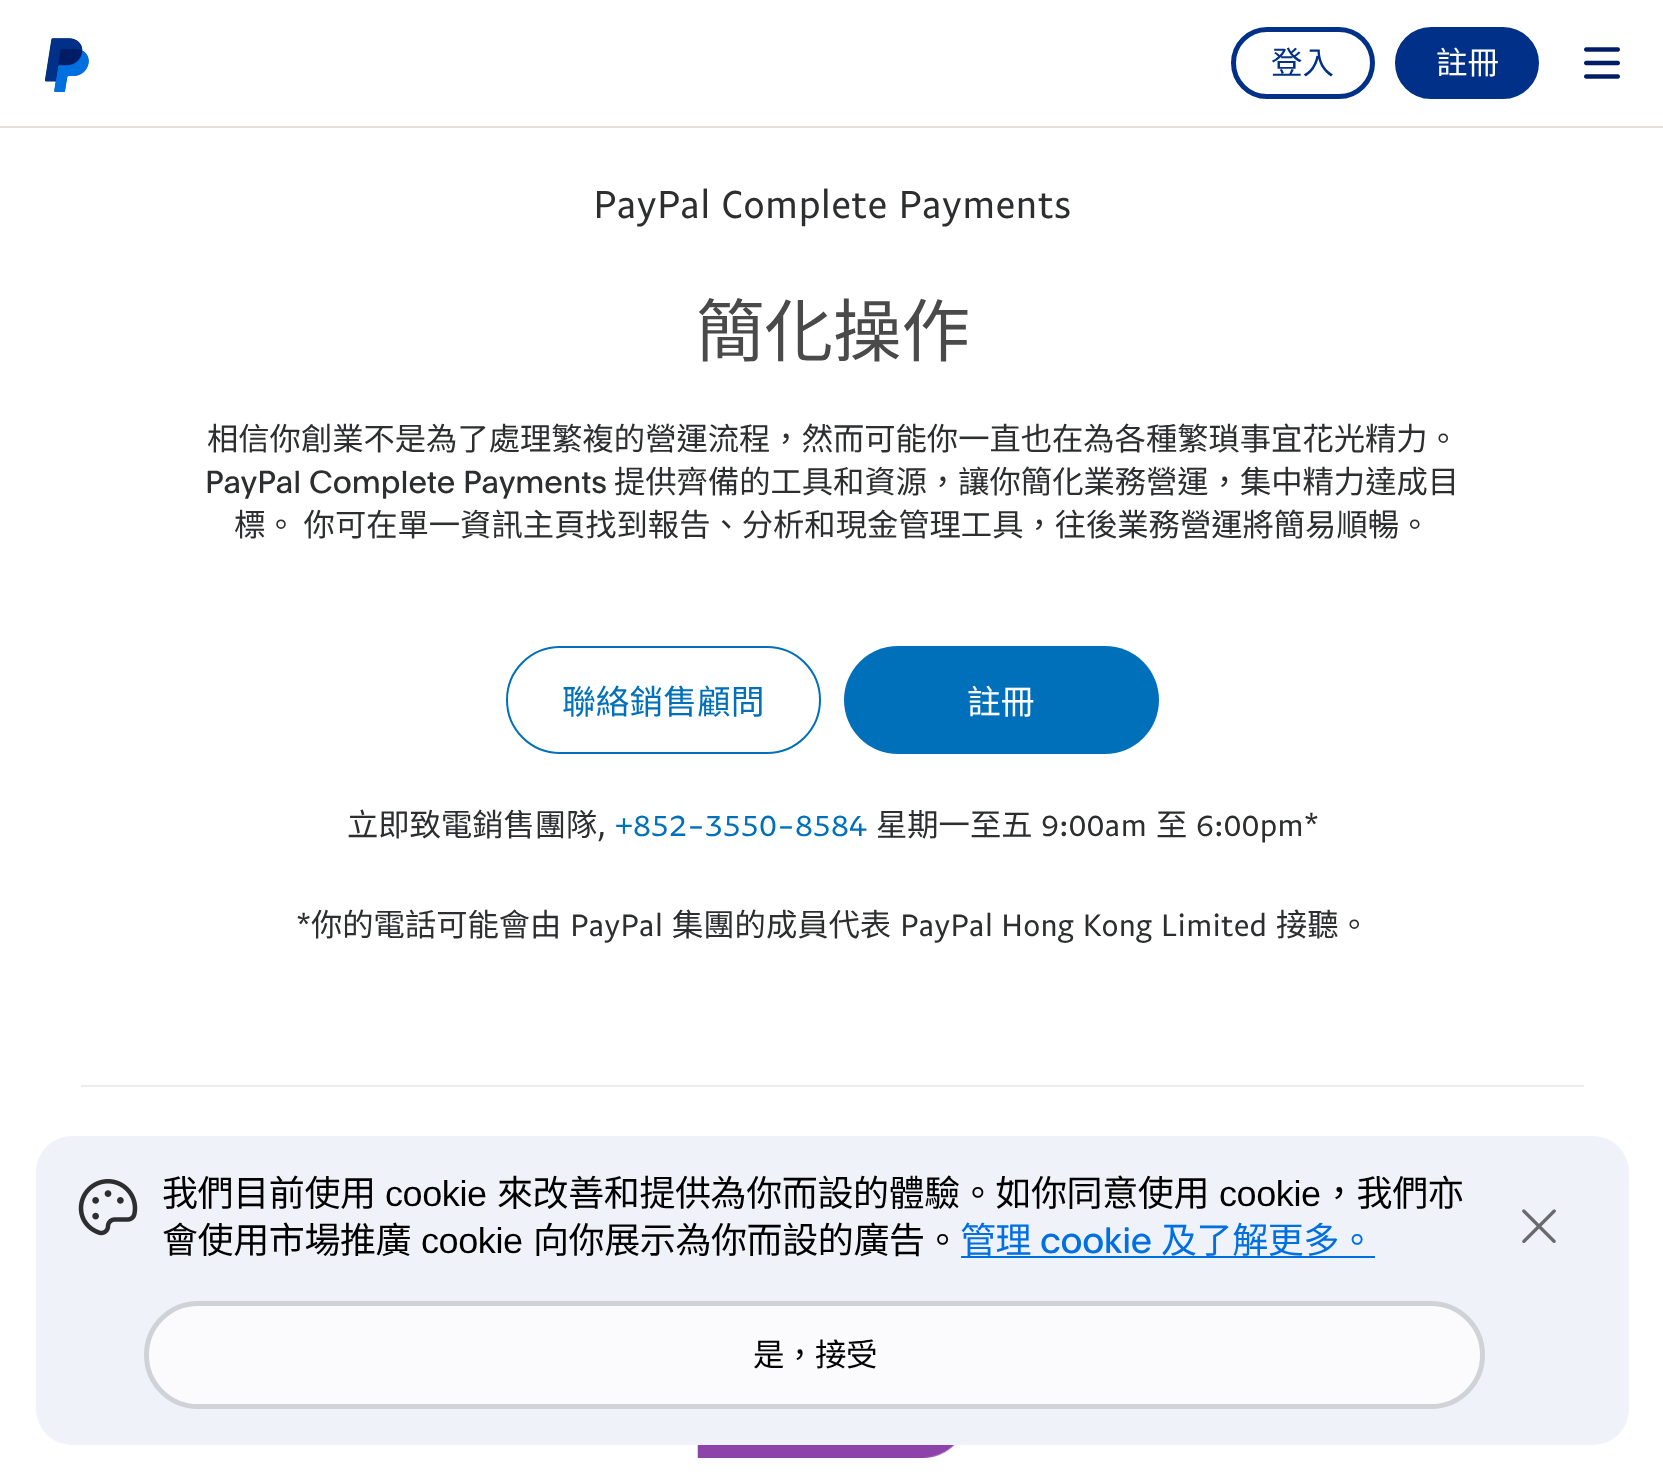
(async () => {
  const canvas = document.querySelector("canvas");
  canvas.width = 1663;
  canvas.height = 1480;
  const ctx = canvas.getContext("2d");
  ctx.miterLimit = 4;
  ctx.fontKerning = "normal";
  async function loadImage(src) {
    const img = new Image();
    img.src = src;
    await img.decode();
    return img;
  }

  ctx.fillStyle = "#ffffff";
  ctx.fillRect(0, 0, 1663, 1480);
  ctx.drawImage(await loadImage("img/1.png"), 45, 38, 44, 54);
  ctx.beginPath();
  ctx.roundRect(1233.5, 29.5, 139, 67, 33.5);
  ctx.strokeStyle = "#003087";
  ctx.lineWidth = 5;
  ctx.stroke();
  ctx.fillStyle = "#003087";
  ctx.beginPath();
  ctx.roundRect(1397.5, 29.5, 139, 67, 33.5);
  ctx.fill();
  ctx.stroke();
  ctx.drawImage(await loadImage("img/2.png"), 1584, 47, 36, 32);
  ctx.fillStyle = "#e6e0d9";
  ctx.fillRect(0, 126, 1663, 2);
  ctx.beginPath();
  ctx.roundRect(507, 647, 313, 106, 53);
  ctx.strokeStyle = "#0070ba";
  ctx.lineWidth = 2;
  ctx.stroke();
  ctx.fillStyle = "#0070ba";
  ctx.beginPath();
  ctx.roundRect(844, 646, 315, 108, 54);
  ctx.fill();
  ctx.fillStyle = "#eaeced";
  ctx.fillRect(81, 1085, 1503, 2);
  ctx.drawImage(await loadImage("img/3.png"), 697, 1445, 258, 13);
  ctx.fillStyle = "#f0f2f9";
  ctx.beginPath();
  ctx.roundRect(36, 1136, 1593, 309, 36);
  ctx.fill();
  ctx.drawImage(await loadImage("img/4.png"), 78, 1179, 60, 57);
  ctx.fillStyle = "#0070e0";
  ctx.fillRect(961, 1256, 414, 2);
  ctx.fillStyle = "#fbfbfd";
  ctx.beginPath();
  ctx.roundRect(146.5, 1303.5, 1336, 103, 51.5);
  ctx.fill();
  ctx.strokeStyle = "#cfd3d8";
  ctx.lineWidth = 5;
  ctx.stroke();
  ctx.drawImage(await loadImage("img/5.png"), 1522, 1209, 34, 34);
  ctx.font = "31.5px Noto Sans CJK HK";
  ctx.fillStyle = "#003087";
  ctx.fillText("登入", 1271, 74);
  ctx.fillStyle = "#ffffff";
  ctx.fillText("註冊", 1436, 74);
  ctx.font = "39.6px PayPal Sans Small";
  ctx.fillStyle = "#2c2e2f";
  ctx.fillText("PayPal Complete Payments", 593, 218);
  ctx.font = "68.5px Noto Sans CJK HK";
  ctx.fillStyle = "#4a4a4a";
  ctx.fillText("簡化操作", 696, 356);
  ctx.font = "31.3px Noto Sans CJK HK";
  ctx.fillStyle = "#2c2e2f";
  ctx.fillText("相信你創業不是為了處理繁複的營運流程，然而可能你一直也在為各種繁瑣事宜花光精力。", 207, 450);
  ctx.font = "31.3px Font";
  ctx.fillText("PayPal Complete Payments", 205, 493);
  ctx.font = "31.3px Noto Sans CJK HK";
  ctx.fillText("提供齊備的工具和資源，讓你簡化業務營運，集中精力達成目", 614, 493);
  ctx.fillText("標。 你可在單一資訊主頁找到報告、分析和現金管理工具，往後業務營運將簡易順暢。", 234, 536);
  ctx.font = "33.75px Noto Sans CJK HK";
  ctx.fillStyle = "#0070ba";
  ctx.fillText("聯絡銷售顧問", 562, 714);
  ctx.fillStyle = "#ffffff";
  ctx.fillText("註冊", 967, 714);
  ctx.font = "31.3px Noto Sans CJK HK";
  ctx.fillStyle = "#2c2e2f";
  ctx.fillText("立即致電銷售團隊", 347, 836);
  ctx.font = "31.3px PayPal Sans Small";
  ctx.fillText(",", 597, 836);
  ctx.fillStyle = "#0070ba";
  ctx.fillText("+852-3550-8584", 615, 836);
  ctx.font = "31.3px Noto Sans CJK HK";
  ctx.fillStyle = "#2c2e2f";
  ctx.fillText("星期一至五", 876, 836);
  ctx.font = "31.3px PayPal Sans Small";
  ctx.fillText("9:00am", 1041, 836);
  ctx.font = "31.3px Noto Sans CJK HK";
  ctx.fillText("至", 1156, 836);
  ctx.font = "31.3px PayPal Sans Small";
  ctx.fillText("6:00pm*", 1196, 836);
  ctx.fillText("*", 296, 936);
  ctx.font = "31.3px Noto Sans CJK HK";
  ctx.fillText("你的電話可能會由", 311, 936);
  ctx.font = "31.3px PayPal Sans Small";
  ctx.fillText("PayPal", 570, 936);
  ctx.font = "31.3px Noto Sans CJK HK";
  ctx.fillText("集團的成員代表", 672, 936);
  ctx.font = "31.3px PayPal Sans Small";
  ctx.fillText("PayPal", 900, 936);
  ctx.fillText("Hong Kong Limited", 1001, 936);
  ctx.font = "31.3px Noto Sans CJK HK";
  ctx.fillText("接聽。", 1276, 936);
  ctx.letterSpacing = "-0.4px";
  ctx.font = "36px Noto Sans CJK HK";
  ctx.fillStyle = "#000000";
  ctx.fillText("我們目前使用", 162, 1206);
  ctx.font = "36px Liberation Sans";
  ctx.fillText("cookie", 385, 1206);
  ctx.font = "36px Noto Sans CJK HK";
  ctx.fillText("來改善和提供為你而設的體驗。如你同意使用", 497, 1206);
  ctx.font = "36px Liberation Sans";
  ctx.fillText("cookie", 1219, 1206);
  ctx.font = "36px Noto Sans CJK HK";
  ctx.fillText("，我們亦", 1321, 1206);
  ctx.fillText("會使用市場推廣", 162, 1253);
  ctx.font = "36px Liberation Sans";
  ctx.fillText("cookie", 421, 1253);
  ctx.font = "36px Noto Sans CJK HK";
  ctx.fillText("向你展示為你而設的廣告。", 533, 1253);
  ctx.fillStyle = "#0070e0";
  ctx.fillText("管理", 960, 1253);
  ctx.font = "36px Font";
  ctx.fillText("cookie", 1040, 1253);
  ctx.font = "36px Noto Sans CJK HK";
  ctx.fillText("及了解更多。", 1161, 1253);
  ctx.letterSpacing = "-0.5px";
  ctx.font = "31.5px Noto Sans CJK HK";
  ctx.fillStyle = "#000000";
  ctx.fillText("是，接受", 753, 1366);
})();
